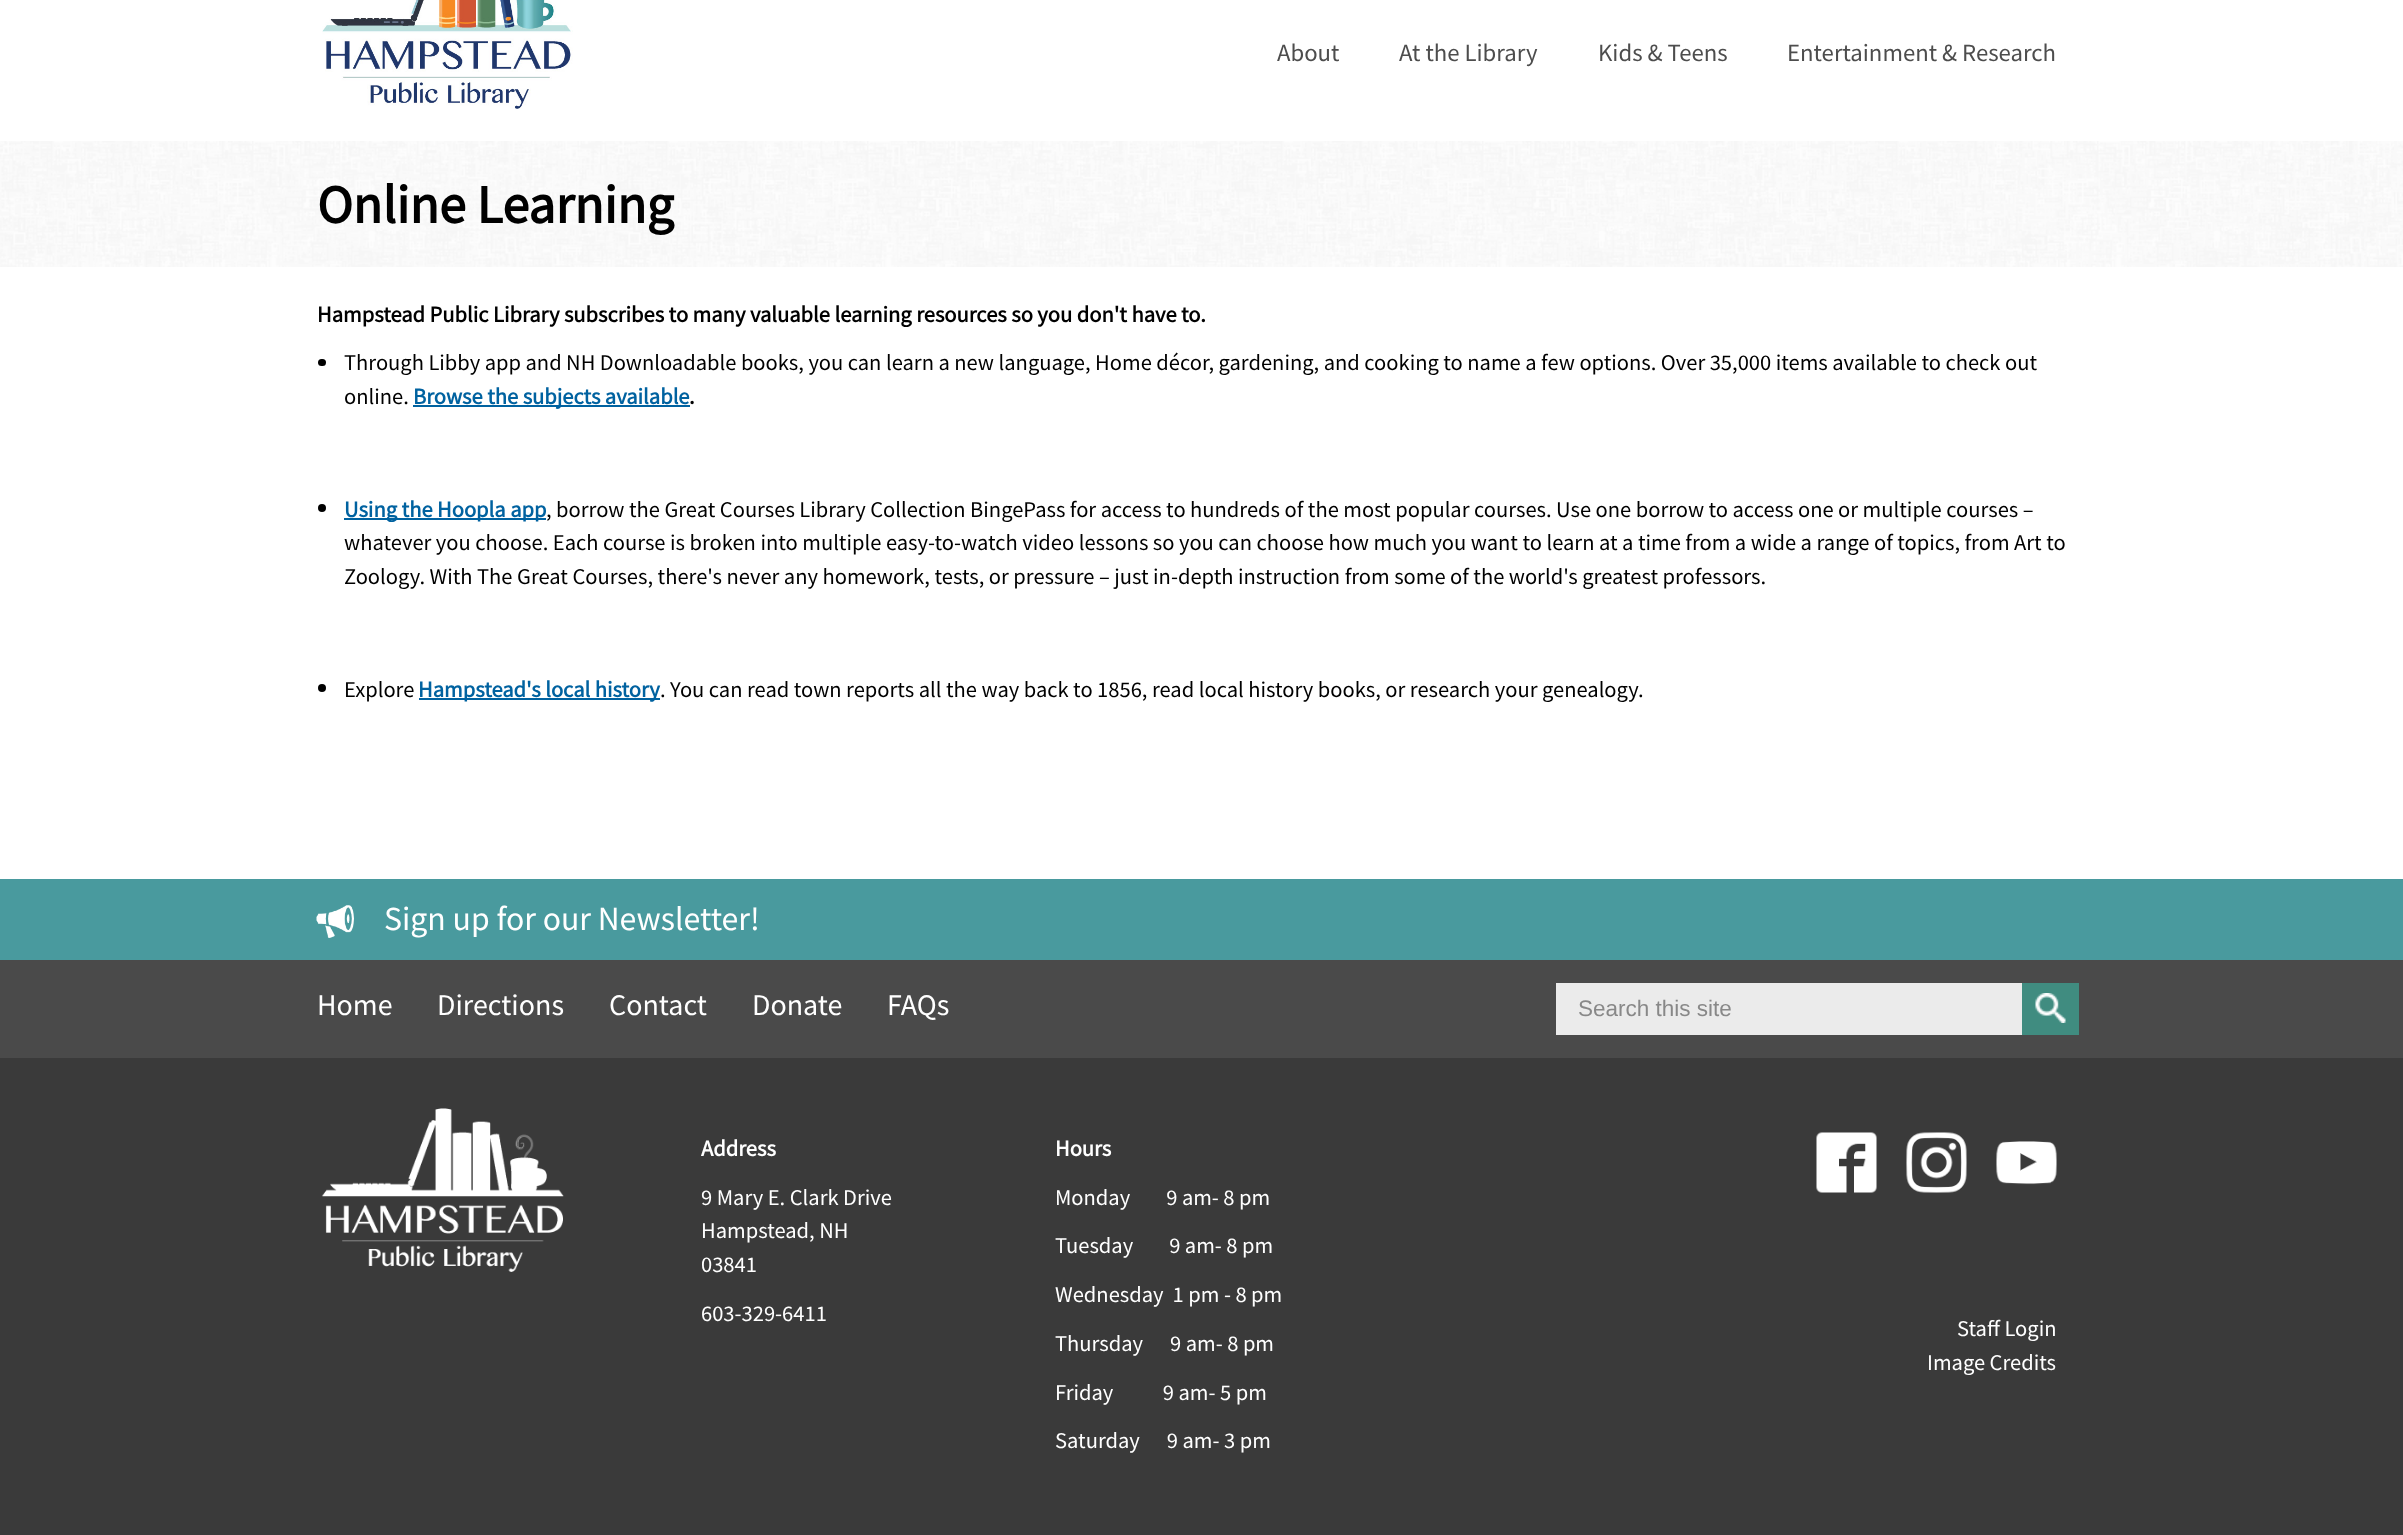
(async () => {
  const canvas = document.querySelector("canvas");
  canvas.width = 2403;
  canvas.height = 1535;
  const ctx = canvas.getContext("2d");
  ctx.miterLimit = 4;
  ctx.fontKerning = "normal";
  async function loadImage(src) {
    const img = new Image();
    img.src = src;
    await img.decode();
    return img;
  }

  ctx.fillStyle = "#ffffff";
  ctx.fillRect(0, 0, 2403, 1535);
  ctx.drawImage(await loadImage("img/1.png"), 322, 0, 251, 109);
  ctx.drawImage(await loadImage("img/2.png"), 0, 141, 2403, 126);
  ctx.fillStyle = "#000000";
  ctx.beginPath();
  ctx.roundRect(318, 359, 8, 7, 3.5);
  ctx.fill();
  ctx.fillStyle = "#0062a0";
  ctx.fillRect(413, 405, 277, 2);
  ctx.fillStyle = "#000000";
  ctx.beginPath();
  ctx.arc(322, 508, 4, 0, Math.PI * 2);
  ctx.fill();
  ctx.fillStyle = "#0062a0";
  ctx.fillRect(344, 518, 202, 2);
  ctx.fillStyle = "#000000";
  ctx.beginPath();
  ctx.arc(322, 688, 4, 0, Math.PI * 2);
  ctx.fill();
  ctx.fillStyle = "#0062a0";
  ctx.fillRect(419, 698, 241, 2);
  ctx.fillStyle = "#499a9e";
  ctx.fillRect(0, 879, 2403, 81);
  ctx.drawImage(await loadImage("img/3.png"), 316, 905, 38, 33);
  for (const [x, y, w, h, color] of [
    [0, 960, 2403, 98, "#4a4a4a"],
    [1556, 983, 466, 52, "#ebebeb"],
    [2022, 983, 57, 52, "#408c80"],
  ]) {
    ctx.fillStyle = color;
    ctx.fillRect(x, y, w, h);
  }
  ctx.drawImage(await loadImage("img/4.png"), 2035, 993, 31, 30);
  ctx.fillStyle = "#3a3a3a";
  ctx.fillRect(0, 1058, 2403, 477);
  ctx.drawImage(await loadImage("img/5.png"), 321, 1108, 243, 164);
  ctx.drawImage(await loadImage("img/6.png"), 1816, 1132, 61, 61);
  ctx.drawImage(await loadImage("img/7.png"), 1906, 1132, 61, 61);
  ctx.drawImage(await loadImage("img/8.png"), 1996, 1141, 61, 44);
  ctx.font = "24.75px Source Sans Pro";
  ctx.fillStyle = "#4d4d4d";
  for (const [text, x, y] of [
    ["About", 1277, 61],
    ["At the Library", 1399, 61],
    ["Kids & Teens", 1598, 61],
    ["Entertainment & Research", 1787, 61],
  ]) {
    ctx.fillText(text, x, y);
  }
  ctx.font = "bold 54px Source Sans Pro";
  ctx.fillStyle = "#000000";
  ctx.fillText("Online Learning", 317, 223);
  ctx.font = "bold 22.5px Source Sans Pro";
  ctx.fillText("Hampstead Public Library subscribes to many valuable learning resources so you don't have to.", 317, 322);
  ctx.font = "22.5px Source Sans Pro";
  ctx.fillText("Through Libby app and NH Downloadable books, you can learn a new language, Home décor, gardening, and cooking to name a few options. Over 35,000 items available to check out", 344, 370);
  ctx.fillText("online.", 344, 404);
  ctx.font = "bold 22.5px Source Sans Pro";
  ctx.fillStyle = "#0062a0";
  ctx.fillText("Browse the subjects available", 413, 404);
  ctx.fillStyle = "#000000";
  ctx.fillText(".", 689, 404);
  ctx.fillStyle = "#0062a0";
  ctx.fillText("Using the Hoopla app", 344, 517);
  ctx.font = "22.5px Source Sans Pro";
  ctx.fillStyle = "#000000";
  for (const [text, x, y] of [
    [", borrow the Great Courses Library Collection BingePass for access to hundreds of the most popular courses. Use one borrow to access one or multiple courses –", 546, 517],
    ["whatever you choose. Each course is broken into multiple easy-to-watch video lessons so you can choose how much you want to learn at a time from a wide a range of topics, from Art to", 344, 550],
    ["Zoology. With The Great Courses, there's never any homework, tests, or pressure – just in-depth instruction from some of the world's greatest professors.", 344, 584],
    ["Explore", 344, 697],
  ]) {
    ctx.fillText(text, x, y);
  }
  ctx.font = "bold 22.5px Source Sans Pro";
  ctx.fillStyle = "#0062a0";
  ctx.fillText("Hampstead's local history", 418, 697);
  ctx.font = "22.5px Source Sans Pro";
  ctx.fillStyle = "#000000";
  ctx.fillText(". You can read town reports all the way back to 1856, read local history books, or research your genealogy.", 660, 697);
  ctx.font = "33.75px Source Sans Pro";
  ctx.fillStyle = "#ffffff";
  ctx.fillText("Sign up for our Newsletter!", 384, 930);
  ctx.font = "30px Source Sans Pro";
  for (const [text, x, y] of [
    ["Home", 317, 1015],
    ["Directions", 437, 1015],
    ["Contact", 609, 1015],
    ["Donate", 752, 1015],
    ["FAQs", 887, 1015],
  ]) {
    ctx.fillText(text, x, y);
  }
  ctx.font = "22.5px Liberation Sans";
  ctx.fillStyle = "#888888";
  ctx.fillText("Search this site", 1578, 1016);
  ctx.font = "bold 22.5px Source Sans Pro";
  ctx.fillStyle = "#ffffff";
  ctx.fillText("Address", 701, 1156);
  ctx.font = "22.5px Source Sans Pro";
  for (const [text, x, y] of [
    ["9 Mary E. Clark Drive", 701, 1205],
    ["Hampstead, NH", 701, 1238],
    ["03841", 701, 1272],
    ["603-329-6411", 701, 1321],
  ]) {
    ctx.fillText(text, x, y);
  }
  ctx.font = "bold 22.5px Source Sans Pro";
  ctx.fillText("Hours", 1055, 1156);
  ctx.font = "22.5px Source Sans Pro";
  for (const [text, x, y] of [
    ["Monday        9 am- 8 pm", 1055, 1205],
    ["Tuesday        9 am- 8 pm", 1055, 1253],
    ["Wednesday  1 pm - 8 pm", 1055, 1302],
    ["Thursday      9 am- 8 pm", 1055, 1351],
    ["Friday           9 am- 5 pm", 1055, 1400],
    ["Saturday      9 am- 3 pm", 1055, 1448],
    ["Staff Login", 1957, 1336],
    ["Image Credits", 1927, 1370],
  ]) {
    ctx.fillText(text, x, y);
  }
})();
